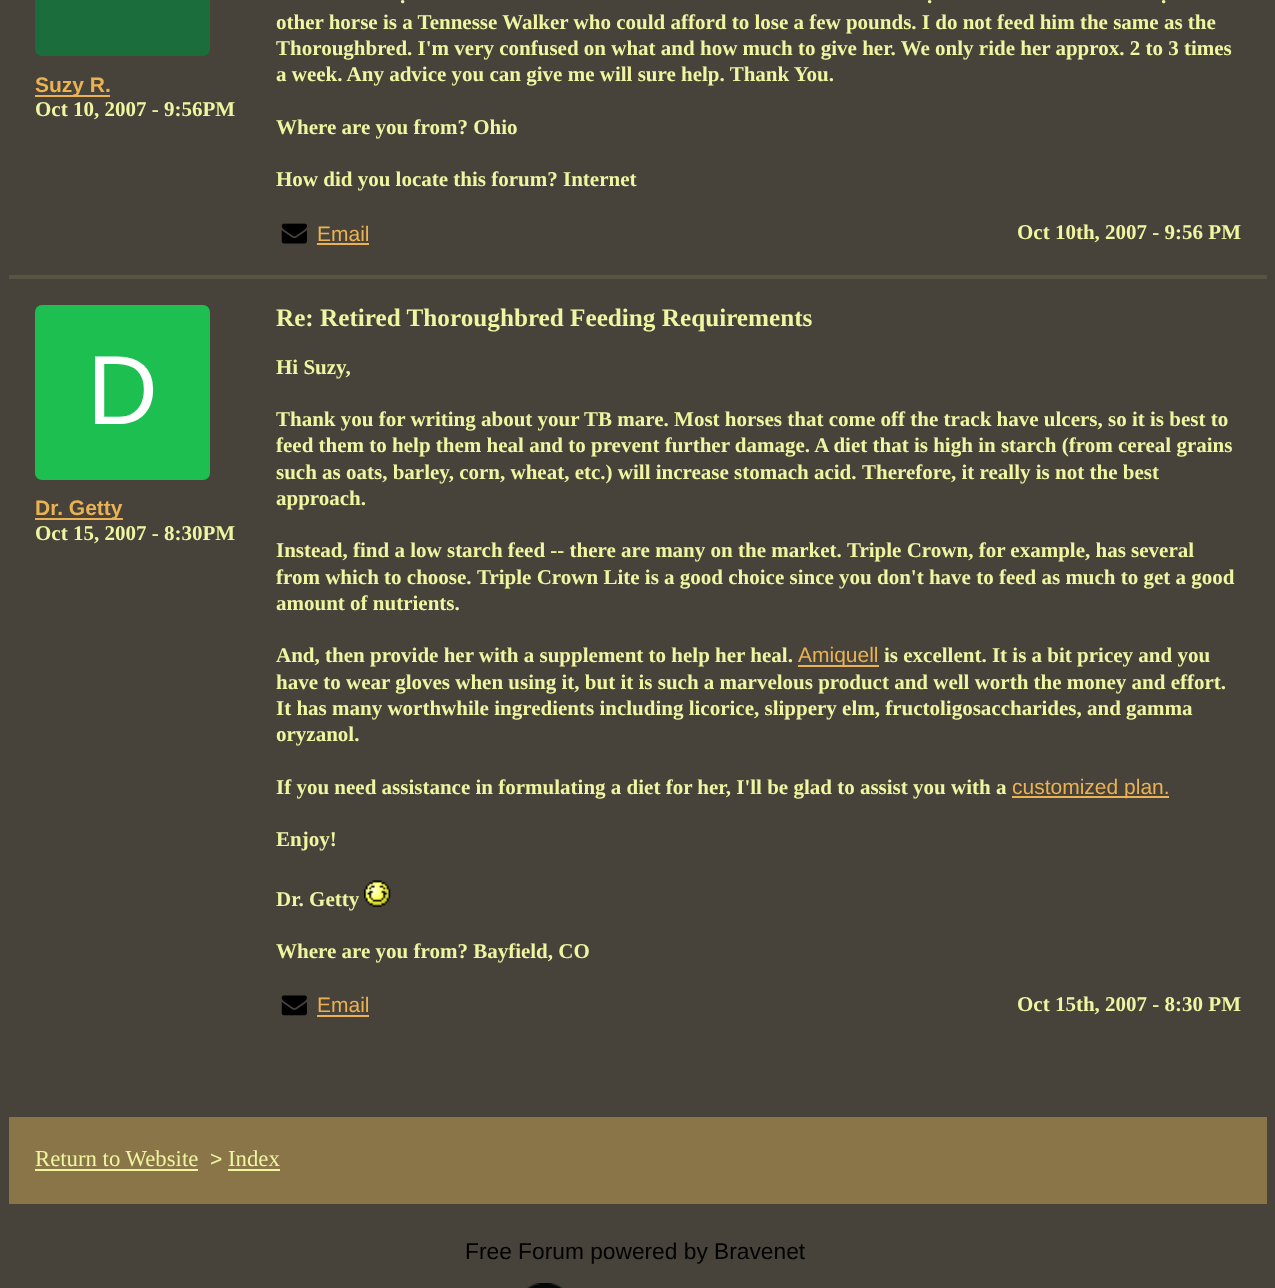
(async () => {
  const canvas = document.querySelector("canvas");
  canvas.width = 1275;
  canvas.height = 1288;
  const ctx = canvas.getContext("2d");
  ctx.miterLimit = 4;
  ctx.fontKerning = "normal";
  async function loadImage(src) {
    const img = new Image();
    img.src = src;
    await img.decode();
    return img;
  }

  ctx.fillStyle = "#47433a";
  ctx.fillRect(0, 0, 1275, 1288);
  ctx.fillStyle = "#585544";
  ctx.fillRect(9, 275, 1258, 4);
  ctx.fillStyle = "#1b6d3b";
  ctx.beginPath();
  ctx.roundRect(35, -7, 175, 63, 7);
  ctx.fill();
  ctx.fillStyle = "#ebb254";
  ctx.fillRect(35, 95, 75, 2);
  ctx.drawImage(await loadImage("img/1.png"), 281, 223, 26, 21);
  ctx.fillRect(317, 243, 52, 2);
  ctx.fillStyle = "#1cbf50";
  ctx.beginPath();
  ctx.roundRect(35, 305, 175, 175, 7);
  ctx.fill();
  for (const [x, y, w, h, color] of [
    [35, 518, 88, 2, "#ebb254"],
    [798, 665, 81, 2, "#ebb254"],
    [1012, 796, 157, 2, "#ebb254"],
  ]) {
    ctx.fillStyle = color;
    ctx.fillRect(x, y, w, h);
  }
  ctx.drawImage(await loadImage("img/2.png"), 364, 880, 27, 27);
  ctx.drawImage(await loadImage("img/3.png"), 281, 995, 26, 21);
  for (const [x, y, w, h, color] of [
    [317, 1015, 52, 2, "#ebb254"],
    [9, 1117, 1258, 87, "#897548"],
    [35, 1169, 163, 2, "#f0f5a1"],
    [228, 1169, 52, 2, "#f0f5a1"],
  ]) {
    ctx.fillStyle = color;
    ctx.fillRect(x, y, w, h);
  }
  ctx.drawImage(await loadImage("img/4.png"), 527, 1283, 36, 5);
  ctx.font = "bold 21px Liberation Sans";
  ctx.fillStyle = "#ebb254";
  ctx.fillText("Suzy R.", 35, 92);
  ctx.font = "bold 21px Liberation Serif";
  ctx.fillStyle = "#f0f5a1";
  for (const [text, x, y] of [
    ["Oct 10, 2007 - 9:56PM", 35, 116],
    [".", 400, 3],
    [".", 927, 3],
    [".", 1161, 3],
    ["other horse is a Tennesse Walker who could afford to lose a few pounds. I do not feed him the same as the", 276, 29],
    ["Thoroughbred. I'm very confused on what and how much to give her. We only ride her approx. 2 to 3 times", 276, 55],
    ["a week. Any advice you can give me will sure help. Thank You.", 276, 81],
    ["Where are you from? Ohio", 276, 134],
    ["How did you locate this forum? Internet", 276, 186],
  ]) {
    ctx.fillText(text, x, y);
  }
  ctx.font = "21px Liberation Sans";
  ctx.fillStyle = "#ebb254";
  ctx.fillText("Email", 317, 241);
  ctx.font = "bold 21px Liberation Serif";
  ctx.fillStyle = "#f0f5a1";
  ctx.fillText("Oct 10th, 2007 - 9:56 PM", 1017, 239);
  ctx.font = "98px Liberation Sans";
  ctx.fillStyle = "#ffffff";
  ctx.fillText("D", 87, 424);
  ctx.font = "bold 21px Liberation Sans";
  ctx.fillStyle = "#ebb254";
  ctx.fillText("Dr. Getty", 35, 515);
  ctx.font = "bold 21px Liberation Serif";
  ctx.fillStyle = "#f0f5a1";
  ctx.fillText("Oct 15, 2007 - 8:30PM", 35, 540);
  ctx.font = "bold 25.2px Liberation Serif";
  ctx.fillText("Re: Retired Thoroughbred Feeding Requirements", 276, 326);
  ctx.font = "bold 21px Liberation Serif";
  for (const [text, x, y] of [
    ["Hi Suzy,", 276, 374],
    ["Thank you for writing about your TB mare. Most horses that come off the track have ulcers, so it is best to", 276, 426],
    ["feed them to help them heal and to prevent further damage. A diet that is high in starch (from cereal grains", 276, 452],
    ["such as oats, barley, corn, wheat, etc.) will increase stomach acid.", 276, 479],
    ["Therefore, it really is not the best", 862, 479],
    ["approach.", 276, 505],
    ["Instead, find a low starch feed -- there are many on the market.", 276, 557],
    ["Triple Crown, for example, has several", 847, 557],
    ["from which to choose.", 276, 584],
    ["Triple Crown Lite is a good choice since you don't have to feed as much to get a good", 477, 584],
    ["amount of nutrients.", 276, 610],
    ["And, then provide her with a supplement to help her heal.", 276, 662],
  ]) {
    ctx.fillText(text, x, y);
  }
  ctx.font = "21px Liberation Sans";
  ctx.fillStyle = "#ebb254";
  ctx.fillText("Amiquell", 798, 662);
  ctx.font = "bold 21px Liberation Serif";
  ctx.fillStyle = "#f0f5a1";
  for (const [text, x, y] of [
    ["is excellent. It is a bit pricey and you", 884, 662],
    ["have to wear gloves when using it, but it is such a marvelous product and well worth the money and effort.", 276, 689],
    ["It has many worthwhile ingredients including licorice, slippery elm, fructoligosaccharides, and gamma", 276, 715],
    ["oryzanol.", 276, 741],
    ["If you need assistance in formulating a diet for her, I'll be glad to assist you with a", 276, 794],
  ]) {
    ctx.fillText(text, x, y);
  }
  ctx.font = "21px Liberation Sans";
  ctx.fillStyle = "#ebb254";
  ctx.fillText("customized plan.", 1012, 794);
  ctx.font = "bold 21px Liberation Serif";
  ctx.fillStyle = "#f0f5a1";
  for (const [text, x, y] of [
    ["Enjoy!", 276, 846],
    ["Dr. Getty", 276, 906],
    ["Where are you from? Bayfield, CO", 276, 958],
  ]) {
    ctx.fillText(text, x, y);
  }
  ctx.font = "21px Liberation Sans";
  ctx.fillStyle = "#ebb254";
  ctx.fillText("Email", 317, 1012);
  ctx.font = "bold 21px Liberation Serif";
  ctx.fillStyle = "#f0f5a1";
  ctx.fillText("Oct 15th, 2007 - 8:30 PM", 1017, 1011);
  ctx.font = "22.75px Liberation Serif";
  ctx.fillText("Return to Website", 35, 1166);
  ctx.font = "21px Liberation Sans";
  ctx.fillText(">", 210, 1166);
  ctx.font = "22.75px Liberation Serif";
  ctx.fillText("Index", 228, 1166);
  ctx.font = "22.75px Liberation Sans";
  ctx.fillStyle = "#000000";
  ctx.fillText("Free Forum powered by Bravenet", 465, 1259);
})();
